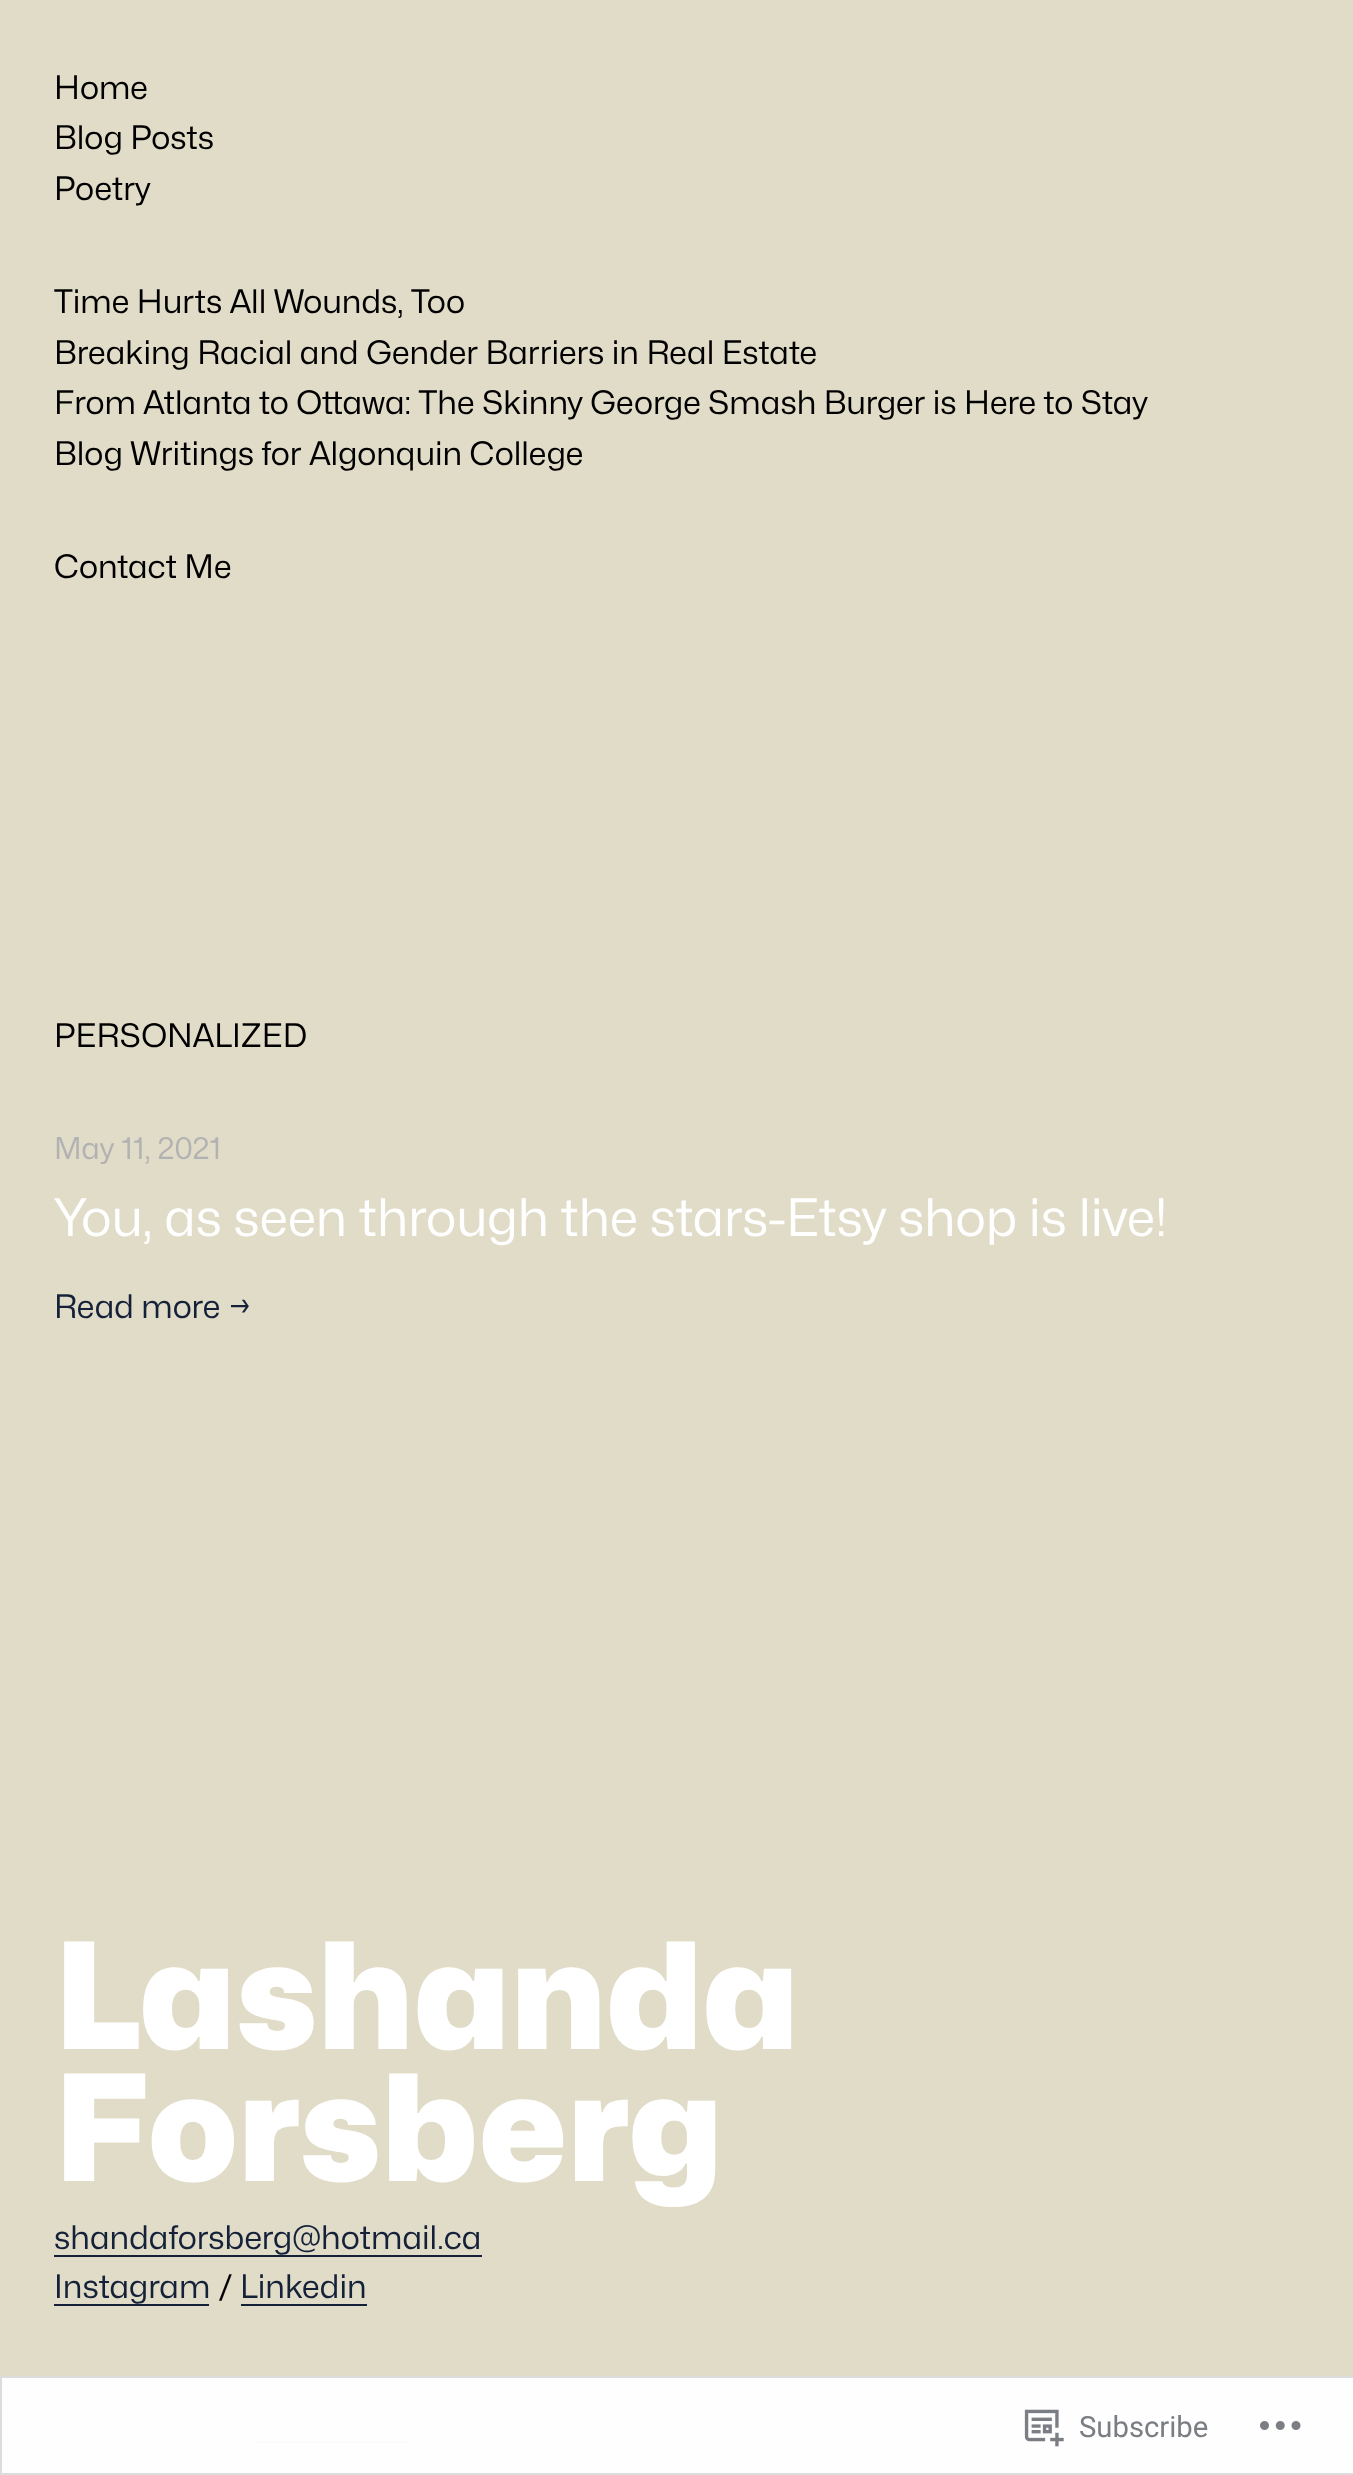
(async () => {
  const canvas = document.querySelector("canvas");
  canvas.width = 1353;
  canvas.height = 2475;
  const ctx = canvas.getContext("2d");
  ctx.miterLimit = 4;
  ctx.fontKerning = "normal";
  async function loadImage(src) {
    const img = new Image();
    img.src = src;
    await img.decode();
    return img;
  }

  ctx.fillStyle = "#e0dcc8";
  ctx.fillRect(0, 0, 1353, 2475);
  for (const [x, y, w, h, color] of [
    [2, 2378, 1351, 95, "#fefefe"],
    [54, 2255, 428, 2, "#142139"],
    [54, 2304, 155, 2, "#142139"],
    [241, 2304, 126, 2, "#142139"],
    [257, 2441, 150, 2, "#fafbfb"],
  ]) {
    ctx.fillStyle = color;
    ctx.fillRect(x, y, w, h);
  }
  ctx.strokeStyle = "#dcdcde";
  ctx.lineWidth = 2;
  ctx.strokeRect(1, 2377, 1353, 97);
  ctx.drawImage(await loadImage("img/1.png"), 1024, 2409, 40, 38);
  ctx.drawImage(await loadImage("img/2.png"), 1260, 2421, 41, 9);
  ctx.font = "32.5px Mona Sans";
  ctx.fillStyle = "#000000";
  for (const [text, x, y] of [
    ["Home", 54, 99],
    ["Blog Posts", 54, 149],
    ["Poetry", 54, 200],
    ["Time Hurts All Wounds, Too", 54, 313],
    ["Breaking Racial and Gender Barriers in Real Estate", 54, 364],
    ["From Atlanta to Ottawa: The Skinny George Smash Burger is Here to Stay", 54, 414],
    ["Blog Writings for Algonquin College", 54, 465],
    ["Contact Me", 54, 578],
    ["PERSONALIZED", 54, 1047],
  ]) {
    ctx.fillText(text, x, y);
  }
  ctx.font = "30.25px Mona Sans";
  ctx.fillStyle = "#b2b2b2";
  ctx.fillText("May 11, 2021", 54, 1159);
  ctx.font = "51.75px Mona Sans";
  ctx.fillStyle = "#ffffff";
  ctx.fillText("You, as seen through the stars-Etsy shop is live!", 54, 1236);
  ctx.font = "32.5px Mona Sans";
  ctx.fillStyle = "#142139";
  ctx.fillText("Read more →", 54, 1318);
  ctx.font = "900 147.5px Mona Sans";
  ctx.fillStyle = "#ffffff";
  ctx.fillText("Lashanda", 54, 2049);
  ctx.fillText("Forsberg", 54, 2181);
  ctx.font = "32.5px Mona Sans";
  ctx.fillStyle = "#142139";
  ctx.fillText("shandaforsberg@hotmail.ca", 54, 2249);
  ctx.fillText("Instagram", 54, 2298);
  ctx.fillStyle = "#000000";
  ctx.fillText("/", 218, 2298);
  ctx.fillStyle = "#142139";
  ctx.fillText("Linkedin", 240, 2298);
  ctx.font = "29.25px Roboto";
  ctx.fillStyle = "#7a7e83";
  ctx.fillText("Subscribe", 1079, 2437);
})();
